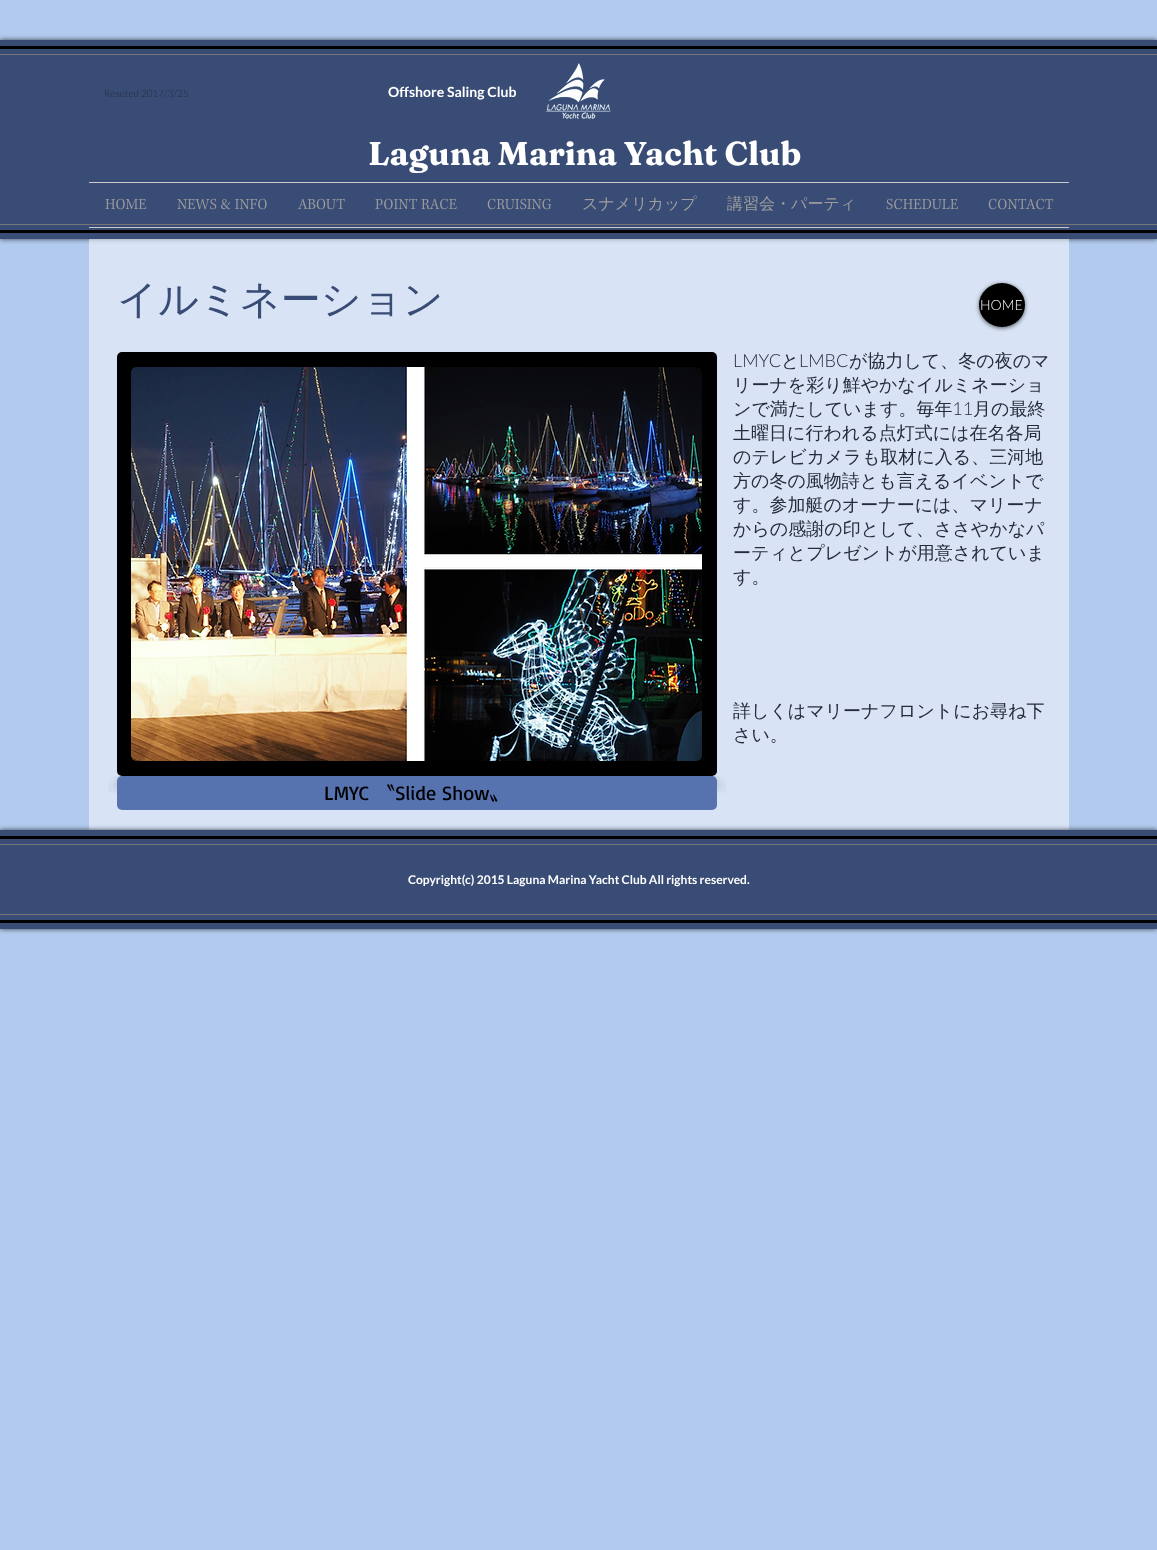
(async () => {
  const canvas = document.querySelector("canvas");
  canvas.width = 1157;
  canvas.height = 1550;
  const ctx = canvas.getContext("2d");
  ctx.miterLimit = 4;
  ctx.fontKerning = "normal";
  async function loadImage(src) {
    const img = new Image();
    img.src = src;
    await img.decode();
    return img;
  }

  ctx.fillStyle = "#b2caed";
  ctx.fillRect(0, 0, 1157, 1550);
  ctx.fillStyle = "rgba(0, 0, 0, 0.7)";
  ctx.filter = "blur(2.5px)";
  ctx.beginPath();
  ctx.rect(0, 40, 1157, 199);
  ctx.fill();
  ctx.filter = "none";
  for (const [x, y, w, h, color] of [
    [0, 40, 1157, 199, "#394c75"],
    [0, 46, 1157, 3, "#000000"],
    [0, 230, 1157, 3, "#000000"],
    [0, 54, 1157, 1, "#757575"],
    [0, 224, 1157, 1, "#757575"],
  ]) {
    ctx.fillStyle = color;
    ctx.fillRect(x, y, w, h);
  }
  ctx.drawImage(await loadImage("img/1.png"), 546, 63, 65, 56);
  ctx.fillStyle = "#cacaca";
  ctx.fillRect(89, 182, 980, 1);
  ctx.fillRect(89, 227, 980, 1);
  ctx.drawImage(await loadImage("img/2.png"), 105, 198, 42, 12);
  ctx.drawImage(await loadImage("img/3.png"), 177, 198, 90, 12);
  ctx.drawImage(await loadImage("img/4.png"), 297, 198, 48, 12);
  ctx.drawImage(await loadImage("img/5.png"), 375, 198, 82, 12);
  ctx.drawImage(await loadImage("img/6.png"), 487, 198, 65, 12);
  ctx.drawImage(await loadImage("img/7.png"), 886, 198, 72, 12);
  ctx.drawImage(await loadImage("img/8.png"), 988, 198, 66, 12);
  ctx.fillStyle = "rgba(255, 255, 255, 0.49)";
  ctx.fillRect(89, 239, 980, 591);
  ctx.fillStyle = "rgba(0, 0, 0, 0.6)";
  ctx.filter = "blur(2px)";
  ctx.beginPath();
  ctx.roundRect(979, 284, 46, 44, 22);
  ctx.fill();
  ctx.filter = "none";
  ctx.fillStyle = "#000000";
  ctx.beginPath();
  ctx.ellipse(1002, 305, 23, 22, 0, 0, Math.PI * 2);
  ctx.fill();
  ctx.beginPath();
  ctx.roundRect(117, 352, 600, 424, 5);
  ctx.fill();
  ctx.drawImage(await loadImage("img/9.png"), 131, 367, 571, 394);
  ctx.drawImage(await loadImage("img/10.png"), 108, 776, 14, 17);
  ctx.drawImage(await loadImage("img/11.png"), 712, 776, 14, 17);
  ctx.fillStyle = "#5673b0";
  ctx.beginPath();
  ctx.roundRect(117, 776, 600, 34, 5);
  ctx.fill();
  ctx.fillStyle = "rgba(0, 0, 0, 0.7)";
  ctx.filter = "blur(2.5px)";
  ctx.beginPath();
  ctx.rect(0, 830, 1157, 99);
  ctx.fill();
  ctx.filter = "none";
  for (const [x, y, w, h, color] of [
    [0, 830, 1157, 99, "#394c75"],
    [0, 836, 1157, 3, "#000000"],
    [0, 920, 1157, 3, "#000000"],
    [0, 844, 1157, 1, "#757575"],
    [0, 914, 1157, 1, "#757575"],
  ]) {
    ctx.fillStyle = color;
    ctx.fillRect(x, y, w, h);
  }
  ctx.font = "300 10px Lato";
  ctx.fillStyle = "#262b3b";
  ctx.fillText("Reseted 2017/3/25", 104, 97);
  ctx.font = "bold 14px Lato";
  ctx.fillStyle = "#ffffff";
  ctx.fillText("Offshore Saling Club", 388, 97);
  ctx.font = "bold 33px Fraunces";
  ctx.fillText("Laguna Marina Yacht Club", 368, 165);
  ctx.font = "500 16px WenQuanYi Zen Hei";
  ctx.fillStyle = "#9e9e9e";
  ctx.fillText("スナメリカップ", 582, 209);
  ctx.fillText("講習会・パーティ", 727, 209);
  ctx.font = "500 40px WenQuanYi Zen Hei";
  ctx.fillStyle = "#394c75";
  ctx.fillText("イルミネーション", 117, 313);
  ctx.font = "300 14px Lato";
  ctx.fillStyle = "#ffffff";
  ctx.fillText("HOME", 980, 310);
  ctx.font = "300 18px Lato";
  ctx.fillStyle = "#262b3b";
  ctx.fillText("LMYC", 733, 367);
  ctx.font = "500 18px WenQuanYi Zen Hei";
  ctx.fillText("と", 781, 367);
  ctx.font = "300 18px Lato";
  ctx.fillText("LMBC", 799, 367);
  ctx.font = "500 18px WenQuanYi Zen Hei";
  for (const [text, x, y] of [
    ["が協力して、冬の夜のマ", 849, 367],
    ["リーナを彩り鮮やかなイルミネーショ", 733, 391],
    ["ンで満たしています。毎年", 733, 415],
  ]) {
    ctx.fillText(text, x, y);
  }
  ctx.font = "300 18px Lato";
  ctx.fillText("11", 952, 415);
  ctx.font = "500 18px WenQuanYi Zen Hei";
  for (const [text, x, y] of [
    ["月の最終", 973, 415],
    ["土曜日に行われる点灯式には在名各局", 733, 439],
    ["のテレビカメラも取材に入る、三河地", 733, 463],
    ["方の冬の風物詩とも言えるイベントで", 733, 487],
    ["す。参加艇のオーナーには、マリーナ", 733, 511],
    ["からの感謝の印として、ささやかなパ", 733, 535],
    ["ーティとプレゼントが用意されていま", 733, 559],
    ["す。", 733, 583],
    ["詳しくはマリーナフロントにお尋ね下", 733, 717],
    ["さい。", 733, 741],
  ]) {
    ctx.fillText(text, x, y);
  }
  ctx.font = "20px Basic";
  ctx.fillStyle = "#000000";
  ctx.fillText("LMYC", 324, 800);
  ctx.font = "500 20px WenQuanYi Zen Hei";
  ctx.fillText("〝", 375, 800);
  ctx.font = "20px Basic";
  ctx.fillText("Slide Show", 395, 800);
  ctx.font = "500 20px WenQuanYi Zen Hei";
  ctx.fillText("〟", 489, 800);
  ctx.font = "bold 12px Lato";
  ctx.fillStyle = "#ffffff";
  ctx.fillText("Copyright(c) 2015 Laguna Marina Yacht Club All rights reserved.", 408, 884);
})();
